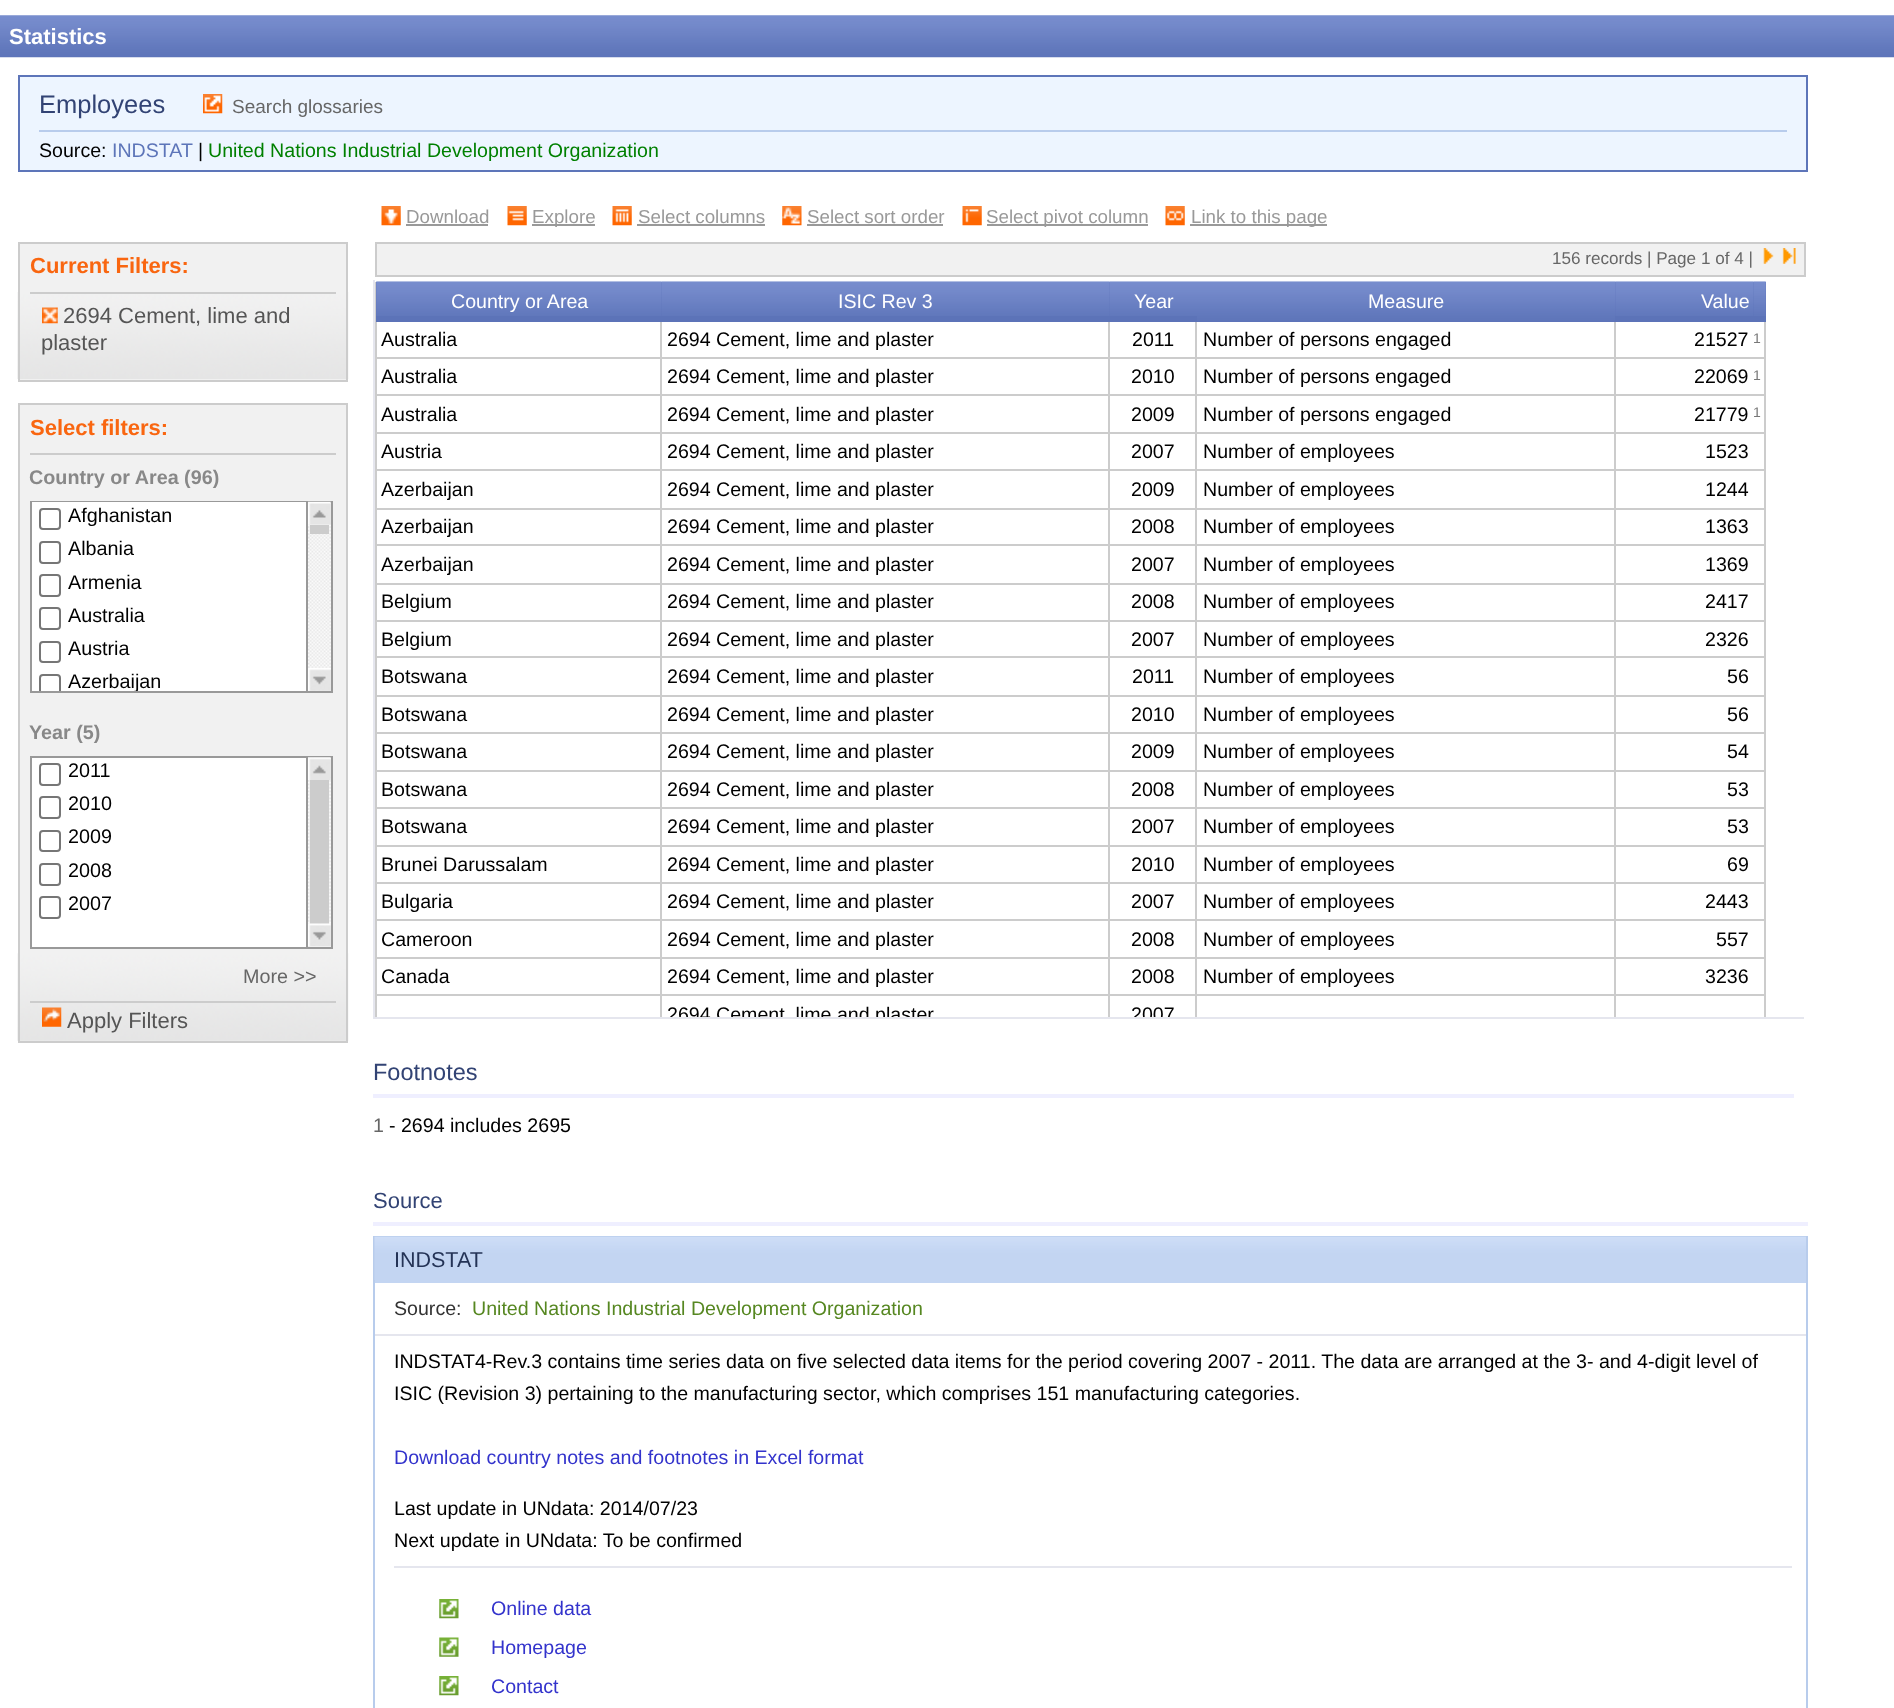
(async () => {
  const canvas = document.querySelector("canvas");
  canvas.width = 1894;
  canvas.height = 1708;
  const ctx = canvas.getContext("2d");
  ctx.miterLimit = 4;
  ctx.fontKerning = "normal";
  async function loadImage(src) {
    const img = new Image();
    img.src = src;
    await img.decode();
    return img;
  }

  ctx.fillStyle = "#ffffff";
  ctx.fillRect(0, 0, 1894, 1708);
  ctx.drawImage(await loadImage("img/1.png"), 0, 15, 1894, 43);
  ctx.fillStyle = "#edf5ff";
  ctx.beginPath();
  ctx.rect(19, 76, 1788, 95);
  ctx.fill();
  ctx.strokeStyle = "#5d75b9";
  ctx.lineWidth = 2;
  ctx.stroke();
  ctx.fillStyle = "#b8ccec";
  ctx.fillRect(39, 130, 1748, 2);
  ctx.drawImage(await loadImage("img/2.png"), 203, 94, 20, 20);
  ctx.drawImage(await loadImage("img/3.png"), 381, 206, 20, 20);
  ctx.fillStyle = "#999999";
  ctx.fillRect(406, 224, 82, 2);
  ctx.drawImage(await loadImage("img/4.png"), 507, 206, 20, 20);
  ctx.fillRect(532, 224, 63, 2);
  ctx.drawImage(await loadImage("img/5.png"), 612, 206, 20, 20);
  ctx.fillRect(637, 224, 128, 2);
  ctx.drawImage(await loadImage("img/6.png"), 782, 206, 20, 20);
  ctx.fillRect(807, 224, 136, 2);
  ctx.drawImage(await loadImage("img/7.png"), 962, 206, 20, 20);
  ctx.fillRect(987, 224, 161, 2);
  ctx.drawImage(await loadImage("img/8.png"), 1165, 206, 20, 20);
  ctx.fillRect(1190, 224, 137, 2);
  ctx.fillStyle = "#f1f1f1";
  ctx.fillRect(20, 244, 326, 136);
  ctx.drawImage(await loadImage("img/9.png"), 17, 292, 332, 87);
  ctx.strokeStyle = "#cccccc";
  ctx.strokeRect(19, 243, 328, 138);
  ctx.fillStyle = "#cccccc";
  ctx.fillRect(30, 292, 306, 2);
  ctx.drawImage(await loadImage("img/10.png"), 42, 307, 16, 17);
  ctx.fillStyle = "#f1f1f1";
  ctx.fillRect(20, 405, 326, 636);
  ctx.drawImage(await loadImage("img/11.png"), 17, 953, 332, 88);
  ctx.strokeRect(19, 404, 328, 638);
  for (const [x, y, w, h, color] of [
    [30, 453, 306, 2, "#cccccc"],
    [30, 501, 276, 1, "#999999"],
    [30, 691, 276, 2, "#999999"],
    [30, 501, 2, 192, "#999999"],
    [32, 502, 274, 189, "#ffffff"],
  ]) {
    ctx.fillStyle = color;
    ctx.fillRect(x, y, w, h);
  }
  ctx.beginPath();
  ctx.roundRect(40, 509, 20, 20, 3);
  ctx.strokeStyle = "#767676";
  ctx.stroke();
  ctx.beginPath();
  ctx.roundRect(40, 542, 20, 21, 3);
  ctx.stroke();
  ctx.beginPath();
  ctx.roundRect(40, 575, 20, 21, 3);
  ctx.stroke();
  ctx.beginPath();
  ctx.roundRect(40, 608, 20, 21, 3);
  ctx.stroke();
  ctx.beginPath();
  ctx.roundRect(40, 642, 20, 20, 3);
  ctx.stroke();
  ctx.save();
  ctx.beginPath();
  ctx.rect(32, 502, 274, 189);
  ctx.clip();
  ctx.beginPath();
  ctx.roundRect(40, 675, 20, 21, 3);
  ctx.stroke();
  ctx.restore();
  ctx.strokeStyle = "#999999";
  ctx.strokeRect(307, 502, 25, 190);
  ctx.drawImage(await loadImage("img/13.png"), 308, 523, 23, 148);
  ctx.drawImage(await loadImage("img/12.png"), 308, 501, 23, 24);
  ctx.fillStyle = "#cccccc";
  ctx.fillRect(310, 525, 19, 9);
  ctx.drawImage(await loadImage("img/14.png"), 308, 668, 23, 23);
  for (const [x, y, w, h, color] of [
    [30, 756, 276, 2, "#999999"],
    [30, 947, 276, 2, "#999999"],
    [30, 756, 2, 193, "#999999"],
    [32, 758, 274, 189, "#ffffff"],
  ]) {
    ctx.fillStyle = color;
    ctx.fillRect(x, y, w, h);
  }
  ctx.beginPath();
  ctx.roundRect(40, 764, 20, 21, 3);
  ctx.strokeStyle = "#767676";
  ctx.stroke();
  ctx.beginPath();
  ctx.roundRect(40, 797, 20, 21, 3);
  ctx.stroke();
  ctx.beginPath();
  ctx.roundRect(40, 831, 20, 20, 3);
  ctx.stroke();
  ctx.beginPath();
  ctx.roundRect(40, 864, 20, 21, 3);
  ctx.stroke();
  ctx.beginPath();
  ctx.roundRect(40, 897, 20, 21, 3);
  ctx.stroke();
  ctx.strokeStyle = "#999999";
  ctx.strokeRect(307, 757, 25, 191);
  ctx.drawImage(await loadImage("img/16.png"), 308, 777, 23, 148);
  ctx.drawImage(await loadImage("img/15.png"), 308, 757, 23, 23);
  ctx.fillStyle = "#cccccc";
  ctx.fillRect(310, 780, 19, 144);
  ctx.drawImage(await loadImage("img/17.png"), 308, 923, 23, 23);
  ctx.fillRect(30, 1001, 306, 2);
  ctx.drawImage(await loadImage("img/18.png"), 42, 1007, 20, 20);
  ctx.fillStyle = "#f1f1f1";
  ctx.beginPath();
  ctx.rect(376, 243, 1429, 33);
  ctx.fill();
  ctx.strokeStyle = "#cccccc";
  ctx.stroke();
  ctx.drawImage(await loadImage("img/19.png"), 1763, 248, 11, 16);
  ctx.drawImage(await loadImage("img/20.png"), 1782, 248, 14, 16);
  for (const [x, y, w, h, color] of [
    [373, 1017, 1431, 2, "#e5e6ee"],
    [373, 280, 2, 739, "#e5e6ee"],
    [375, 282, 2, 735, "#cccccc"],
    [376, 282, 734, 40, "#5c73b8"],
  ]) {
    ctx.fillStyle = color;
    ctx.fillRect(x, y, w, h);
  }
  ctx.drawImage(await loadImage("img/21.png"), 376, 281, 286, 35);
  ctx.drawImage(await loadImage("img/22.png"), 661, 281, 449, 35);
  ctx.fillRect(1110, 316, 87, 6);
  ctx.drawImage(await loadImage("img/23.png"), 1109, 281, 88, 35);
  ctx.fillRect(1197, 321, 418, 1);
  ctx.drawImage(await loadImage("img/24.png"), 1197, 281, 419, 41);
  ctx.fillRect(1615, 282, 151, 40);
  ctx.drawImage(await loadImage("img/25.png"), 1615, 281, 139, 35);
  ctx.drawImage(await loadImage("img/26.png"), 1753, 281, 13, 35);
  for (const [x, y, w, h, color] of [
    [660, 322, 2, 187, "#cccccc"],
    [376, 357, 286, 2, "#cccccc"],
    [1108, 322, 2, 187, "#cccccc"],
    [662, 357, 448, 2, "#cccccc"],
    [1195, 322, 2, 187, "#cccccc"],
    [1110, 357, 87, 2, "#cccccc"],
    [1614, 322, 2, 187, "#cccccc"],
    [1197, 357, 557, 2, "#cccccc"],
    [1764, 322, 2, 187, "#cccccc"],
    [1754, 357, 12, 2, "#cccccc"],
    [376, 394, 1390, 2, "#cccccc"],
    [376, 432, 1390, 2, "#cccccc"],
    [376, 469, 1390, 2, "#cccccc"],
    [376, 508, 1390, 2, "#cccccc"],
    [660, 509, 2, 112, "#cccccc"],
    [376, 544, 286, 2, "#cccccc"],
    [1108, 509, 2, 112, "#cccccc"],
    [662, 544, 448, 2, "#cccccc"],
    [1195, 509, 2, 112, "#cccccc"],
    [1110, 544, 87, 2, "#cccccc"],
    [1614, 509, 2, 112, "#cccccc"],
    [1197, 544, 557, 2, "#cccccc"],
    [1764, 509, 2, 112, "#cccccc"],
    [1754, 544, 12, 2, "#cccccc"],
    [376, 583, 1390, 2, "#cccccc"],
    [376, 620, 1390, 2, "#cccccc"],
    [660, 621, 2, 112, "#cccccc"],
    [376, 656, 286, 2, "#cccccc"],
    [1108, 621, 2, 112, "#cccccc"],
    [662, 656, 448, 2, "#cccccc"],
    [1195, 621, 2, 112, "#cccccc"],
    [1110, 656, 87, 2, "#cccccc"],
    [1614, 621, 2, 112, "#cccccc"],
    [1197, 656, 557, 2, "#cccccc"],
    [1764, 621, 2, 112, "#cccccc"],
    [1754, 656, 12, 2, "#cccccc"],
    [376, 695, 1390, 2, "#cccccc"],
    [376, 732, 1390, 2, "#cccccc"],
    [660, 733, 2, 284, "#cccccc"],
    [376, 770, 286, 2, "#cccccc"],
    [1108, 733, 2, 284, "#cccccc"],
    [662, 770, 448, 2, "#cccccc"],
    [1195, 733, 2, 284, "#cccccc"],
    [1110, 770, 87, 2, "#cccccc"],
    [1614, 733, 2, 284, "#cccccc"],
    [1197, 770, 557, 2, "#cccccc"],
    [1764, 733, 2, 284, "#cccccc"],
    [1754, 770, 12, 2, "#cccccc"],
    [376, 807, 1390, 2, "#cccccc"],
    [376, 845, 1390, 2, "#cccccc"],
    [376, 882, 1390, 2, "#cccccc"],
    [376, 919, 1390, 2, "#cccccc"],
    [376, 957, 1390, 2, "#cccccc"],
    [376, 994, 1390, 2, "#cccccc"],
    [373, 1094, 1421, 4, "#efefff"],
    [373, 1222, 1435, 4, "#efefff"],
  ]) {
    ctx.fillStyle = color;
    ctx.fillRect(x, y, w, h);
  }
  ctx.strokeStyle = "#b8ccec";
  ctx.strokeRect(374, 1237, 1433, 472);
  ctx.fillStyle = "#c3d5f2";
  ctx.fillRect(375, 1280, 1431, 3);
  ctx.drawImage(await loadImage("img/27.png"), 374, 1236, 1432, 44);
  ctx.fillStyle = "#e5e6ee";
  ctx.fillRect(375, 1334, 1431, 2);
  ctx.fillRect(394, 1566, 1398, 2);
  ctx.drawImage(await loadImage("img/28.png"), 439, 1599, 20, 20);
  ctx.drawImage(await loadImage("img/29.png"), 439, 1637, 20, 20);
  ctx.drawImage(await loadImage("img/28.png"), 439, 1676, 20, 20);
  ctx.font = "bold 22px Liberation Sans";
  ctx.fillStyle = "#ffffff";
  ctx.fillText("Statistics", 9, 44);
  ctx.font = "25.5px Liberation Sans";
  ctx.fillStyle = "#324374";
  ctx.fillText("Employees", 39, 113);
  ctx.font = "19px Liberation Sans";
  ctx.fillStyle = "#666666";
  ctx.fillText("Search glossaries", 232, 113);
  ctx.font = "19.6px Liberation Sans";
  ctx.fillStyle = "#000000";
  ctx.fillText("Source:", 39, 157);
  ctx.fillStyle = "#5d75b9";
  ctx.fillText("INDSTAT", 112, 157);
  ctx.fillStyle = "#000000";
  ctx.fillText("|", 198, 157);
  ctx.fillStyle = "#008000";
  ctx.fillText("United Nations Industrial Development Organization", 208, 157);
  ctx.font = "18.75px Liberation Sans";
  ctx.fillStyle = "#999999";
  for (const [text, x, y] of [
    ["Download", 406, 223],
    ["Explore", 532, 223],
    ["Select columns", 638, 223],
    ["Select sort order", 807, 223],
    ["Select pivot column", 986, 223],
    ["Link to this page", 1191, 223],
  ]) {
    ctx.fillText(text, x, y);
  }
  ctx.font = "bold 22px Liberation Sans";
  ctx.fillStyle = "#f96610";
  ctx.fillText("Current Filters:", 30, 273);
  ctx.font = "22px Liberation Sans";
  ctx.fillStyle = "#555555";
  ctx.fillText("2694 Cement, lime and", 63, 323);
  ctx.fillText("plaster", 41, 350);
  ctx.font = "bold 22px Liberation Sans";
  ctx.fillStyle = "#f96610";
  ctx.fillText("Select filters:", 30, 435);
  ctx.font = "bold 19.75px Liberation Sans";
  ctx.fillStyle = "#888888";
  ctx.fillText("Country or Area (96)", 29, 484);
  ctx.font = "19.75px Liberation Sans";
  ctx.fillStyle = "#000000";
  for (const [text, x, y] of [
    ["Afghanistan", 68, 522],
    ["Albania", 68, 555],
    ["Armenia", 68, 589],
    ["Australia", 68, 622],
    ["Austria", 68, 655],
  ]) {
    ctx.fillText(text, x, y);
  }
  ctx.save();
  ctx.beginPath();
  ctx.rect(32, 502, 274, 189);
  ctx.clip();
  ctx.fillText("Azerbaijan", 68, 688);
  ctx.restore();
  ctx.font = "bold 19.75px Liberation Sans";
  ctx.fillStyle = "#888888";
  ctx.fillText("Year (5)", 29, 739);
  ctx.font = "19.75px Liberation Sans";
  ctx.fillStyle = "#000000";
  for (const [text, x, y] of [
    ["2011", 68, 777],
    ["2010", 68, 810],
    ["2009", 68, 843],
    ["2008", 68, 877],
    ["2007", 68, 910],
  ]) {
    ctx.fillText(text, x, y);
  }
  ctx.fillStyle = "#666666";
  ctx.fillText("More >>", 243, 983);
  ctx.font = "22px Liberation Sans";
  ctx.fillStyle = "#555555";
  ctx.fillText("Apply Filters", 67, 1028);
  ctx.font = "17.1px Liberation Sans";
  ctx.fillStyle = "#666666";
  ctx.fillText("156 records | Page 1 of 4 |", 1552, 264);
  ctx.font = "19.6px Liberation Sans";
  ctx.fillStyle = "#ffffff";
  for (const [text, x, y] of [
    ["Country or Area", 451, 308],
    ["ISIC Rev 3", 838, 308],
    ["Year", 1134, 308],
    ["Measure", 1368, 308],
    ["Value", 1701, 308],
  ]) {
    ctx.fillText(text, x, y);
  }
  ctx.fillStyle = "#000000";
  for (const [text, x, y] of [
    ["Australia", 381, 346],
    ["2694 Cement, lime and plaster", 667, 346],
    ["2011", 1132, 346],
    ["Number of persons engaged", 1203, 346],
    ["21527", 1694, 346],
  ]) {
    ctx.fillText(text, x, y);
  }
  ctx.font = "14px Liberation Sans";
  ctx.fillStyle = "#777777";
  ctx.fillText("1", 1753, 343);
  ctx.font = "19.6px Liberation Sans";
  ctx.fillStyle = "#000000";
  for (const [text, x, y] of [
    ["Australia", 381, 383],
    ["2694 Cement, lime and plaster", 667, 383],
    ["2010", 1131, 383],
    ["Number of persons engaged", 1203, 383],
    ["22069", 1694, 383],
  ]) {
    ctx.fillText(text, x, y);
  }
  ctx.font = "14px Liberation Sans";
  ctx.fillStyle = "#777777";
  ctx.fillText("1", 1753, 380);
  ctx.font = "19.6px Liberation Sans";
  ctx.fillStyle = "#000000";
  for (const [text, x, y] of [
    ["Australia", 381, 421],
    ["2694 Cement, lime and plaster", 667, 421],
    ["2009", 1131, 421],
    ["Number of persons engaged", 1203, 421],
    ["21779", 1694, 421],
  ]) {
    ctx.fillText(text, x, y);
  }
  ctx.font = "14px Liberation Sans";
  ctx.fillStyle = "#777777";
  ctx.fillText("1", 1753, 417);
  ctx.font = "19.6px Liberation Sans";
  ctx.fillStyle = "#000000";
  for (const [text, x, y] of [
    ["Austria", 381, 458],
    ["2694 Cement, lime and plaster", 667, 458],
    ["2007", 1131, 458],
    ["Number of employees", 1203, 458],
    ["1523", 1705, 458],
    ["Azerbaijan", 381, 496],
    ["2694 Cement, lime and plaster", 667, 496],
    ["2009", 1131, 496],
    ["Number of employees", 1203, 496],
    ["1244", 1705, 496],
    ["Azerbaijan", 381, 533],
    ["2694 Cement, lime and plaster", 667, 533],
    ["2008", 1131, 533],
    ["Number of employees", 1203, 533],
    ["1363", 1705, 533],
    ["Azerbaijan", 381, 571],
    ["2694 Cement, lime and plaster", 667, 571],
    ["2007", 1131, 571],
    ["Number of employees", 1203, 571],
    ["1369", 1705, 571],
    ["Belgium", 381, 608],
    ["2694 Cement, lime and plaster", 667, 608],
    ["2008", 1131, 608],
    ["Number of employees", 1203, 608],
    ["2417", 1705, 608],
    ["Belgium", 381, 646],
    ["2694 Cement, lime and plaster", 667, 646],
    ["2007", 1131, 646],
    ["Number of employees", 1203, 646],
    ["2326", 1705, 646],
    ["Botswana", 381, 683],
    ["2694 Cement, lime and plaster", 667, 683],
    ["2011", 1132, 683],
    ["Number of employees", 1203, 683],
    ["56", 1727, 683],
    ["Botswana", 381, 721],
    ["2694 Cement, lime and plaster", 667, 721],
    ["2010", 1131, 721],
    ["Number of employees", 1203, 721],
    ["56", 1727, 721],
    ["Botswana", 381, 758],
    ["2694 Cement, lime and plaster", 667, 758],
    ["2009", 1131, 758],
    ["Number of employees", 1203, 758],
    ["54", 1727, 758],
    ["Botswana", 381, 796],
    ["2694 Cement, lime and plaster", 667, 796],
    ["2008", 1131, 796],
    ["Number of employees", 1203, 796],
    ["53", 1727, 796],
    ["Botswana", 381, 833],
    ["2694 Cement, lime and plaster", 667, 833],
    ["2007", 1131, 833],
    ["Number of employees", 1203, 833],
    ["53", 1727, 833],
    ["Brunei Darussalam", 381, 871],
    ["2694 Cement, lime and plaster", 667, 871],
    ["2010", 1131, 871],
    ["Number of employees", 1203, 871],
    ["69", 1727, 871],
    ["Bulgaria", 381, 908],
    ["2694 Cement, lime and plaster", 667, 908],
    ["2007", 1131, 908],
    ["Number of employees", 1203, 908],
    ["2443", 1705, 908],
    ["Cameroon", 381, 946],
    ["2694 Cement, lime and plaster", 667, 946],
    ["2008", 1131, 946],
    ["Number of employees", 1203, 946],
    ["557", 1716, 946],
    ["Canada", 381, 983],
    ["2694 Cement, lime and plaster", 667, 983],
    ["2008", 1131, 983],
    ["Number of employees", 1203, 983],
    ["3236", 1705, 983],
  ]) {
    ctx.fillText(text, x, y);
  }
  ctx.save();
  ctx.beginPath();
  ctx.rect(375, 282, 1428, 735);
  ctx.clip();
  ctx.fillText("2694 Cement, lime and plaster", 667, 1021);
  ctx.fillText("2007", 1131, 1021);
  ctx.restore();
  ctx.font = "23.5px Liberation Sans";
  ctx.fillStyle = "#324374";
  ctx.fillText("Footnotes", 373, 1080);
  ctx.font = "19.6px Liberation Sans";
  ctx.fillStyle = "#666666";
  ctx.fillText("1", 373, 1132);
  ctx.fillStyle = "#000000";
  ctx.fillText("- 2694 includes 2695", 389, 1132);
  ctx.font = "22px Liberation Sans";
  ctx.fillStyle = "#324374";
  ctx.fillText("Source", 373, 1208);
  ctx.font = "21.5px Liberation Sans";
  ctx.fillStyle = "#243356";
  ctx.fillText("INDSTAT", 394, 1267);
  ctx.font = "19.6px Liberation Sans";
  ctx.fillStyle = "#333333";
  ctx.fillText("Source:", 394, 1315);
  ctx.fillStyle = "#568721";
  ctx.fillText("United Nations Industrial Development Organization", 472, 1315);
  ctx.fillStyle = "#000000";
  ctx.fillText("INDSTAT4-Rev.3 contains time series data on five selected data items for the period covering 2007 - 2011. The data are arranged at the 3- and 4-digit level of", 394, 1368);
  ctx.fillText("ISIC (Revision 3) pertaining to the manufacturing sector, which comprises 151 manufacturing categories.", 394, 1400);
  ctx.fillStyle = "#3333cc";
  ctx.fillText("Download country notes and footnotes in Excel format", 394, 1464);
  ctx.fillStyle = "#000000";
  ctx.fillText("Last update in UNdata: 2014/07/23", 394, 1515);
  ctx.fillText("Next update in UNdata: To be confirmed", 394, 1547);
  ctx.fillStyle = "#3333cc";
  for (const [text, x, y] of [
    ["Online data", 491, 1615],
    ["Homepage", 491, 1654],
    ["Contact", 491, 1693],
  ]) {
    ctx.fillText(text, x, y);
  }
})();
